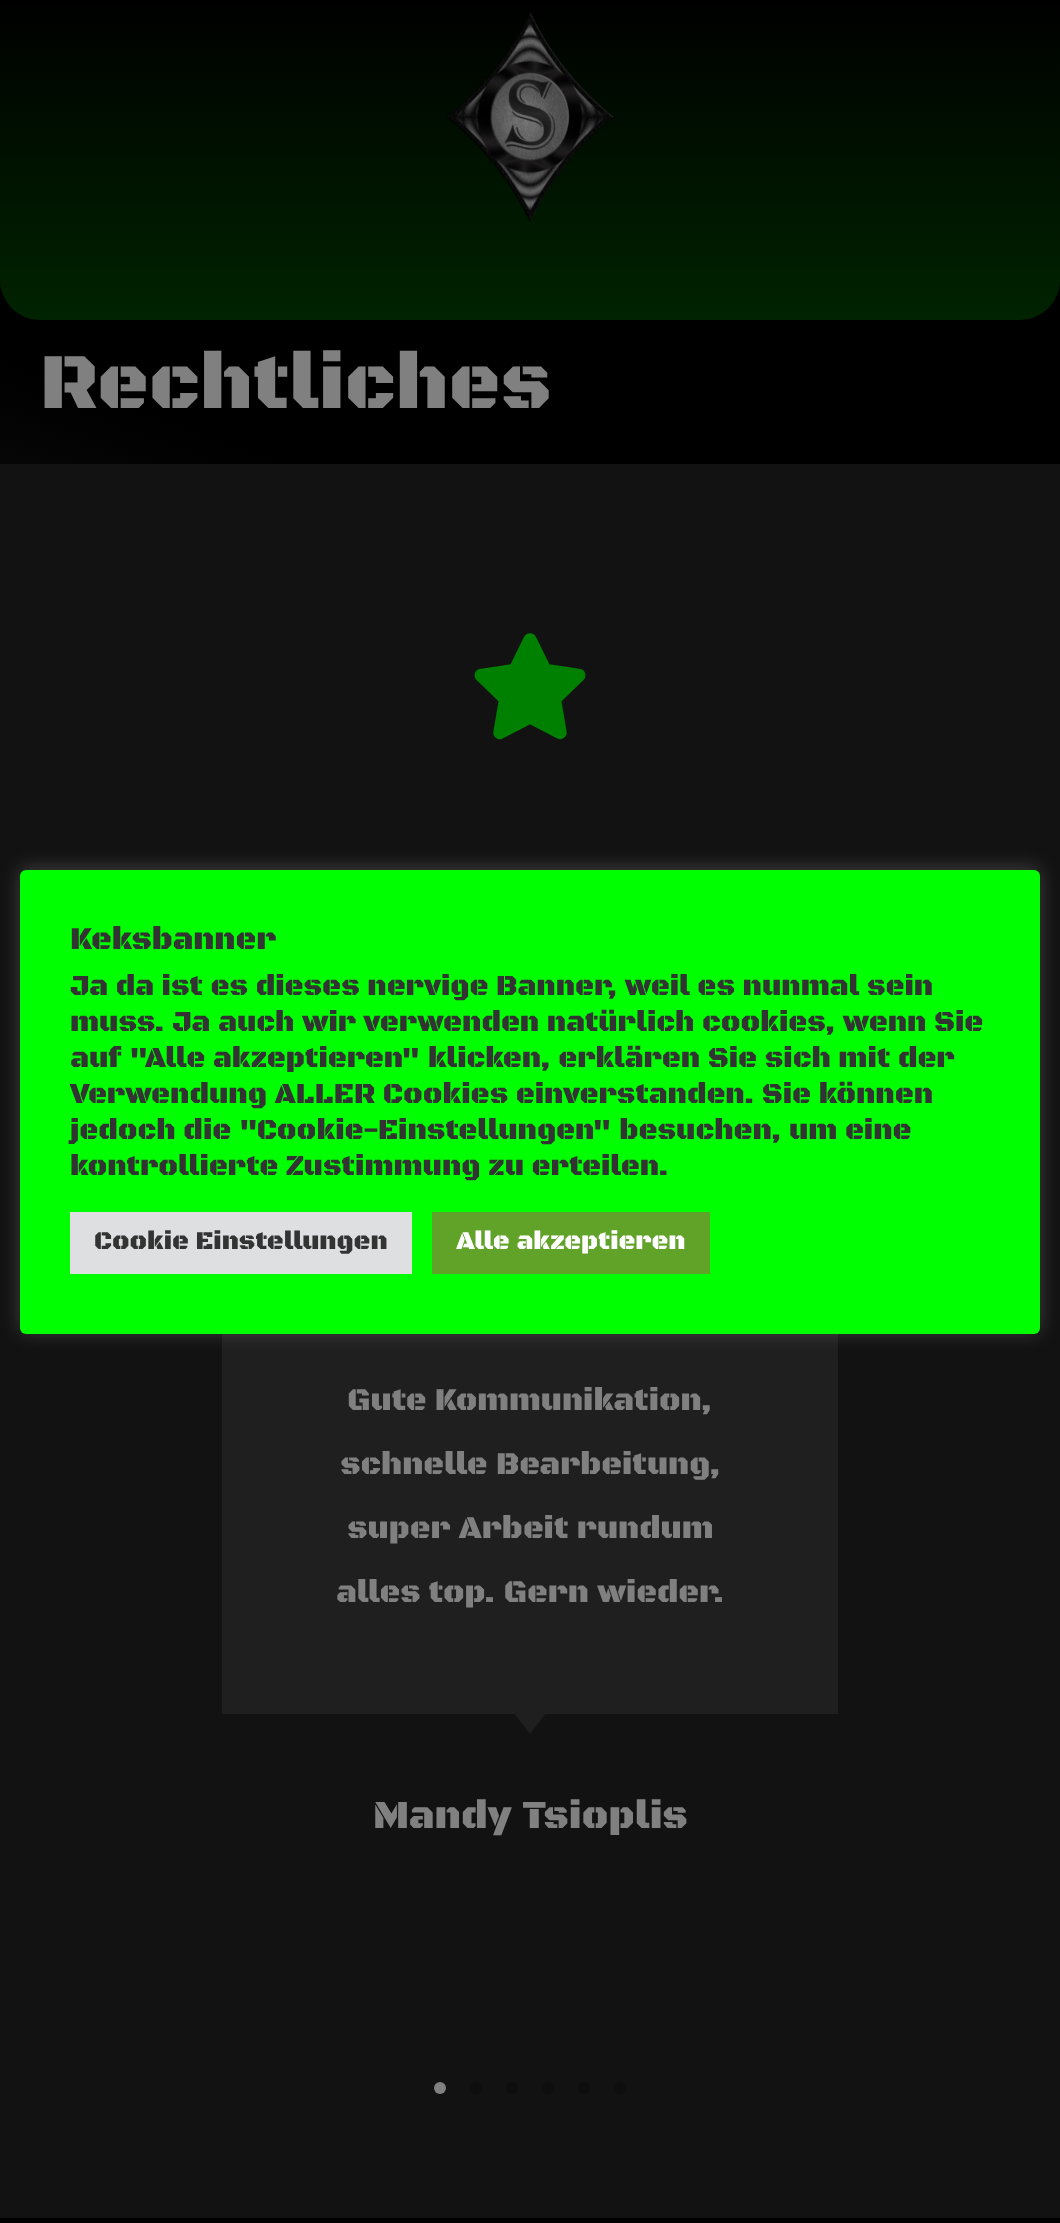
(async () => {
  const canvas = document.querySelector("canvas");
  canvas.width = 1060;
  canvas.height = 2223;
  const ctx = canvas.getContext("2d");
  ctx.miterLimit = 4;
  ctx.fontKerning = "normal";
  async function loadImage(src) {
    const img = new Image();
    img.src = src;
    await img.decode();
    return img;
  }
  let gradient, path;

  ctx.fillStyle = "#ffffff";
  ctx.fillRect(0, 0, 1060, 2223);
  gradient = ctx.createLinearGradient(991, -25, 69, 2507);
  gradient.addColorStop(0.26, "#000000");
  gradient.addColorStop(1, "#808080");
  ctx.fillStyle = gradient;
  ctx.fillRect(0, 280, 1060, 184);
  gradient = ctx.createLinearGradient(530, 0, 530, 320);
  gradient.addColorStop(0, "#000000");
  gradient.addColorStop(1, "#002300");
  ctx.fillStyle = gradient;
  ctx.beginPath();
  ctx.roundRect(0, 0, 1060, 320, [0, 0, 40, 40]);
  ctx.fill();
  ctx.drawImage(await loadImage("img/1.png"), 447, 12, 167, 210);
  ctx.fillStyle = "#121212";
  ctx.fillRect(0, 464, 1060, 1754);
  ctx.fillStyle = "#1f1f1f";
  ctx.fillRect(222, 1334, 616, 380);
  ctx.fillStyle = "rgba(172, 171, 171, 0.3)";
  ctx.filter = "blur(10px)";
  ctx.beginPath();
  ctx.roundRect(20, 868, 1020, 464, 6);
  ctx.fill();
  ctx.filter = "none";
  ctx.fillStyle = "#00ff00";
  ctx.beginPath();
  ctx.roundRect(20, 870, 1020, 464, 6);
  ctx.fill();
  ctx.fillStyle = "#dedfe0";
  ctx.fillRect(70, 1212, 342, 62);
  ctx.fillStyle = "#61a229";
  ctx.fillRect(432, 1212, 278, 62);
  ctx.drawImage(await loadImage("img/2.png"), 474, 633, 112, 107);
  ctx.fillStyle = "#1f1f1f";
  path = new Path2D("M530 1694.5L545 1714.5L530 1734L515 1714.5Z");
  ctx.fill(path);
  ctx.fillStyle = "#808080";
  ctx.beginPath();
  ctx.arc(440, 2088, 6, 0, Math.PI * 2);
  ctx.fill();
  ctx.fillStyle = "#0e0e0e";
  ctx.beginPath();
  ctx.arc(476, 2088, 6, 0, Math.PI * 2);
  ctx.fill();
  ctx.beginPath();
  ctx.arc(512, 2088, 6, 0, Math.PI * 2);
  ctx.fill();
  ctx.beginPath();
  ctx.arc(548, 2088, 6, 0, Math.PI * 2);
  ctx.fill();
  ctx.beginPath();
  ctx.arc(584, 2088, 6, 0, Math.PI * 2);
  ctx.fill();
  ctx.beginPath();
  ctx.arc(620, 2088, 6, 0, Math.PI * 2);
  ctx.fill();
  ctx.fillStyle = "#000000";
  ctx.fillRect(0, 2218, 1060, 5);
  ctx.font = "900 80px Black Ops One";
  ctx.fillStyle = "#808080";
  ctx.fillText("Rechtliches", 40, 408);
  ctx.font = "900 32px Black Ops One";
  ctx.fillStyle = "#333333";
  ctx.fillText("Keksbanner", 70, 949);
  ctx.font = "900 29.3px Black Ops One";
  for (const [text, x, y] of [
    ["Ja da ist es dieses nervige Banner, weil es nunmal sein", 70, 995],
    ["muss. Ja auch wir verwenden natürlich cookies, wenn Sie", 70, 1031],
    ["auf \"Alle akzeptieren\" klicken, erklären Sie sich mit der", 70, 1067],
    ["Verwendung ALLER Cookies einverstanden. Sie können", 70, 1103],
    ["jedoch die \"Cookie-Einstellungen\" besuchen, um eine", 70, 1139],
    ["kontrollierte Zustimmung zu erteilen.", 70, 1175],
  ]) {
    ctx.fillText(text, x, y);
  }
  ctx.font = "900 26px Black Ops One";
  ctx.fillText("Cookie Einstellungen", 94, 1249);
  ctx.fillStyle = "#ffffff";
  ctx.fillText("Alle akzeptieren", 456, 1249);
  ctx.font = "900 32px Black Ops One";
  ctx.fillStyle = "#808080";
  for (const [text, x, y] of [
    ["Gute Kommunikation,", 347, 1410],
    ["schnelle Bearbeitung,", 340, 1474],
    ["super Arbeit rundum", 347, 1538],
    ["alles top. Gern wieder.", 336, 1602],
  ]) {
    ctx.fillText(text, x, y);
  }
  ctx.font = "900 40px Black Ops One";
  ctx.fillText("Mandy Tsioplis", 373, 1828);
})();
